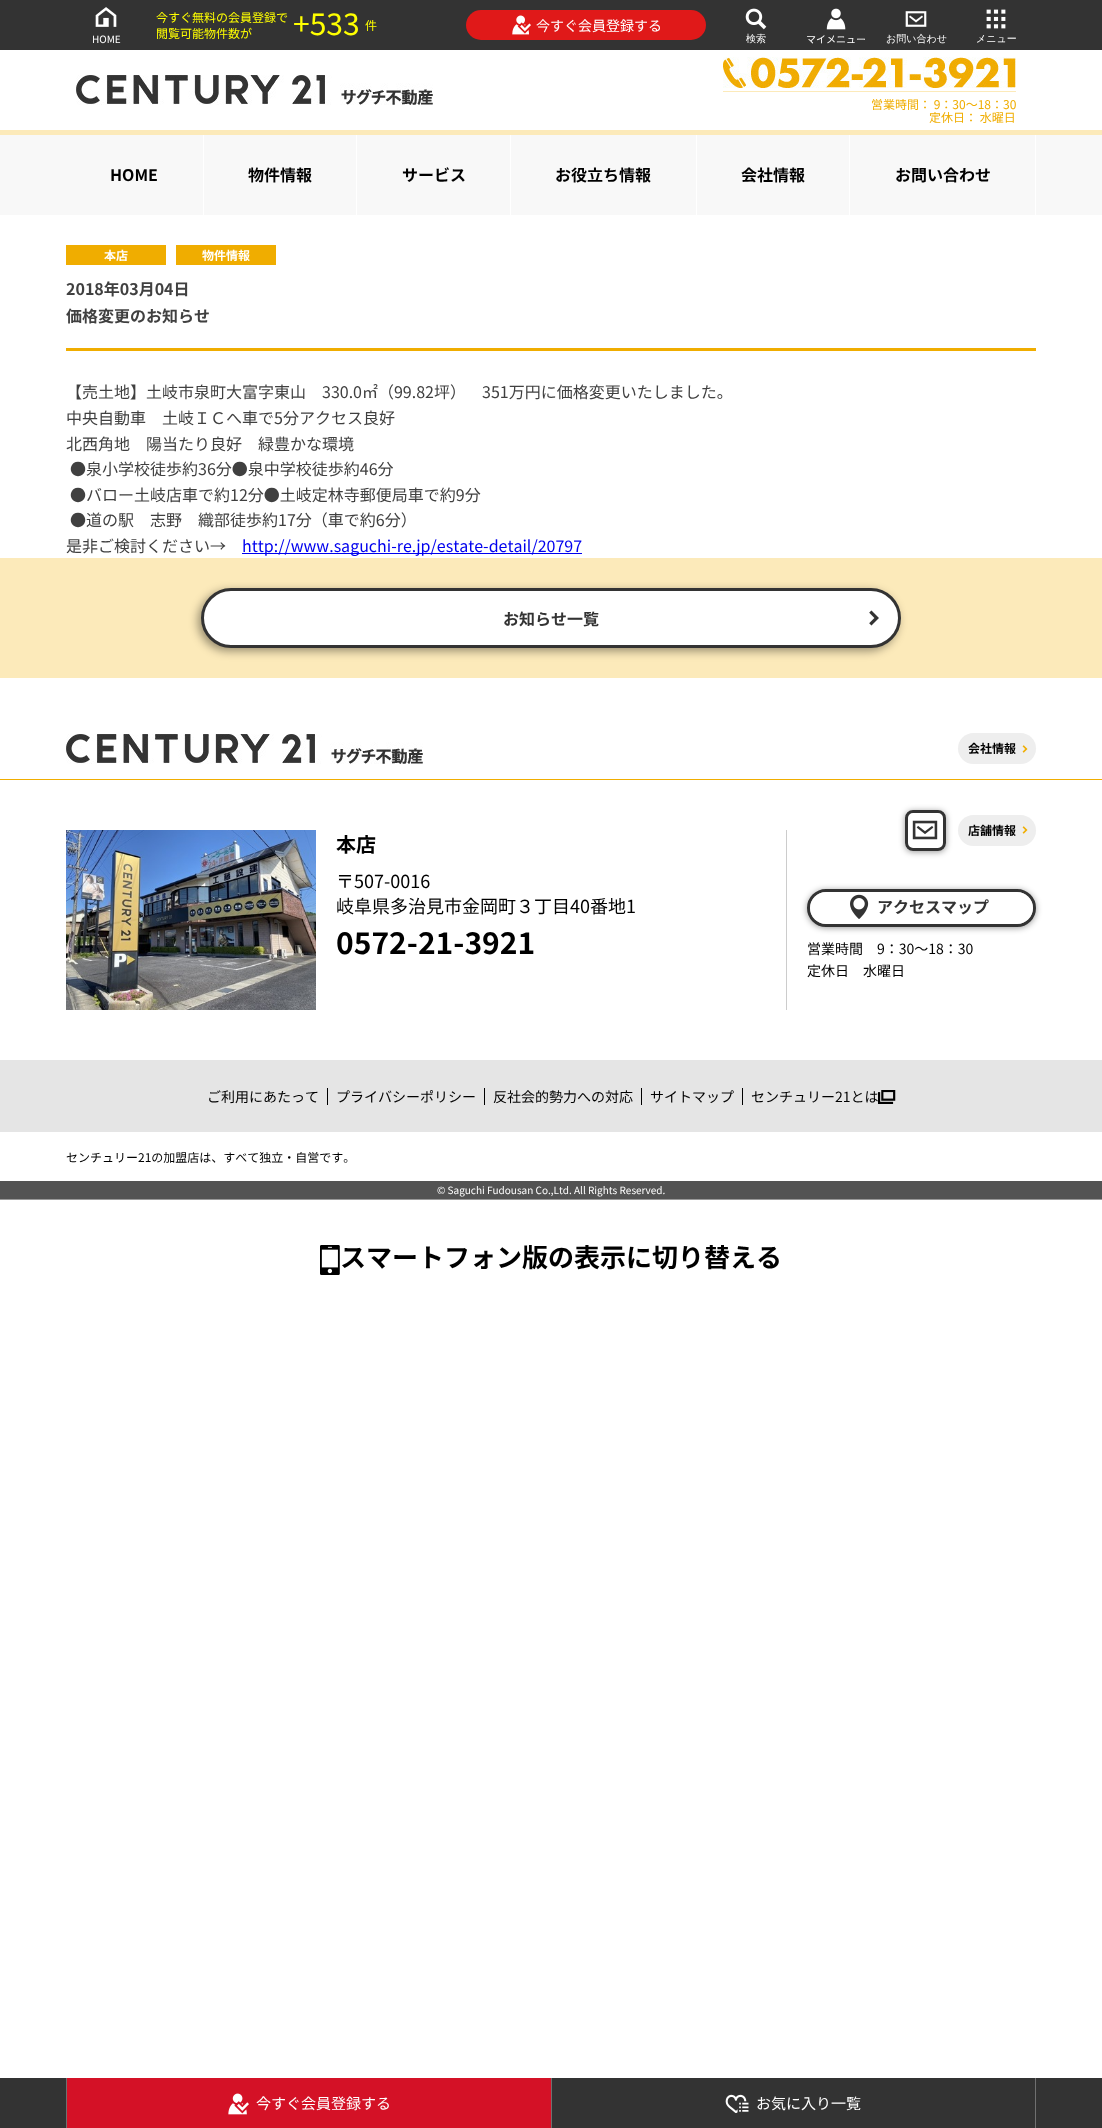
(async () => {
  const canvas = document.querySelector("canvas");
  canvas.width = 1102;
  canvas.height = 2128;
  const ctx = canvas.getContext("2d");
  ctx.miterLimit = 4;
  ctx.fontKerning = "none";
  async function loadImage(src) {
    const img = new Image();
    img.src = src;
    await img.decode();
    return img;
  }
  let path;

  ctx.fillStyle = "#ffffff";
  ctx.fillRect(0, 0, 1102, 2128);
  ctx.fillStyle = "#333333";
  ctx.fillRect(0, 0, 1102, 50);
  ctx.fillStyle = "#e01919";
  ctx.beginPath();
  ctx.roundRect(466, 10, 240, 30, 15);
  ctx.fill();
  ctx.drawImage(await loadImage("img/1.png"), 512, 15, 19, 20);
  ctx.drawImage(await loadImage("img/2.png"), 95, 7, 22, 20);
  ctx.drawImage(await loadImage("img/3.png"), 745, 8, 22, 22);
  ctx.drawImage(await loadImage("img/4.png"), 826, 8, 20, 22);
  ctx.drawImage(await loadImage("img/5.png"), 905, 11, 22, 16);
  ctx.drawImage(await loadImage("img/6.png"), 986, 9, 20, 20);
  ctx.drawImage(await loadImage("img/7.png"), 76, 75, 357, 30);
  ctx.drawImage(await loadImage("img/8.png"), 723, 57, 293, 31);
  for (const [x, y, w, h, color] of [
    [723, 91, 293, 1, "#fceaba"],
    [0, 135, 1102, 80, "#f8f8f8"],
    [0, 130, 1102, 5, "#fceaba"],
    [203, 135, 1, 80, "#ffffff"],
    [356, 135, 1, 80, "#ffffff"],
    [510, 135, 1, 80, "#ffffff"],
    [696, 135, 1, 80, "#ffffff"],
    [849, 135, 1, 80, "#ffffff"],
    [1035, 135, 1, 80, "#ffffff"],
    [66, 245, 100, 20, "#f0ad00"],
    [176, 245, 100, 20, "#f0ad00"],
    [66, 348, 970, 3, "#f0ad00"],
    [242, 553, 340, 1, "#0000ee"],
    [0, 558, 1102, 120, "#fceaba"],
  ]) {
    ctx.fillStyle = color;
    ctx.fillRect(x, y, w, h);
  }
  ctx.fillStyle = "rgba(0, 0, 0, 0.4)";
  ctx.filter = "blur(5px)";
  ctx.beginPath();
  ctx.roundRect(198, 591, 700, 60, 30);
  ctx.fill();
  ctx.filter = "none";
  ctx.fillStyle = "#ffffff";
  ctx.beginPath();
  ctx.roundRect(202.5, 589.5, 697, 57, 28.5);
  ctx.fill();
  ctx.strokeStyle = "#333333";
  ctx.lineWidth = 3;
  ctx.stroke();
  ctx.drawImage(await loadImage("img/9.png"), 869, 610, 10, 16);
  ctx.fillStyle = "#999999";
  ctx.fillRect(0, 1199, 1102, 1);
  ctx.fillStyle = "#f0ad00";
  ctx.fillRect(0, 779, 1102, 1);
  ctx.drawImage(await loadImage("img/7.png"), 66, 734, 357, 30);
  ctx.fillStyle = "#eeeeee";
  ctx.beginPath();
  ctx.roundRect(958, 733, 78, 31, 15.5);
  ctx.fill();
  ctx.drawImage(await loadImage("img/10.png"), 1022, 745, 6, 8);
  ctx.drawImage(await loadImage("img/11.png"), 66, 830, 250, 180);
  ctx.fillStyle = "#cccccc";
  ctx.fillRect(786, 830, 1, 180);
  ctx.save();
  path = new Path2D("M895 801H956V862H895ZM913 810H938C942.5 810 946 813.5 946 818V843C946 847.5 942.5 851 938 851H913C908.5 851 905 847.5 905 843V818C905 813.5 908.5 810 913 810Z");
  ctx.clip(path, "evenodd");
  ctx.fillStyle = "rgba(0, 0, 0, 0.4)";
  ctx.filter = "blur(3px)";
  ctx.beginPath();
  ctx.roundRect(905, 811, 41, 41, 8);
  ctx.fill();
  ctx.filter = "none";
  ctx.restore();
  ctx.beginPath();
  ctx.roundRect(906.5, 811.5, 38, 38, 6.5);
  ctx.stroke();
  ctx.drawImage(await loadImage("img/12.png"), 912, 820, 26, 20);
  ctx.fillStyle = "#eeeeee";
  ctx.beginPath();
  ctx.roundRect(958, 815, 78, 31, 15.5);
  ctx.fill();
  ctx.drawImage(await loadImage("img/10.png"), 1022, 826, 6, 8);
  ctx.fillStyle = "rgba(0, 0, 0, 0.4)";
  ctx.filter = "blur(3px)";
  ctx.beginPath();
  ctx.roundRect(807, 890, 229, 38, 19);
  ctx.fill();
  ctx.filter = "none";
  ctx.beginPath();
  ctx.roundRect(808.5, 890.5, 226, 35, 17.5);
  ctx.stroke();
  ctx.fillStyle = "#ffffff";
  ctx.beginPath();
  ctx.roundRect(810, 892, 223, 32, 16);
  ctx.fill();
  ctx.drawImage(await loadImage("img/13.png"), 850, 894, 19, 25);
  for (const [x, y, w, h, color] of [
    [0, 1060, 1102, 72, "#e5e5e5"],
    [327, 1088, 1, 17, "#000000"],
    [484, 1088, 1, 17, "#000000"],
    [641, 1088, 1, 17, "#000000"],
    [742, 1088, 1, 17, "#000000"],
  ]) {
    ctx.fillStyle = color;
    ctx.fillRect(x, y, w, h);
  }
  ctx.drawImage(await loadImage("img/14.png"), 878, 1090, 18, 14);
  ctx.fillStyle = "#535353";
  ctx.fillRect(0, 1181, 1102, 18);
  ctx.drawImage(await loadImage("img/15.png"), 320, 1245, 20, 30);
  for (const [x, y, w, h, color] of [
    [0, 2078, 1102, 50, "#333333"],
    [551, 2078, 1, 50, "#707070"],
    [66, 2078, 1, 50, "#707070"],
    [67, 2078, 484, 50, "#d41126"],
  ]) {
    ctx.fillStyle = color;
    ctx.fillRect(x, y, w, h);
  }
  ctx.drawImage(await loadImage("img/16.png"), 228, 2093, 21, 22);
  ctx.fillStyle = "#707070";
  ctx.fillRect(1035, 2078, 1, 50);
  ctx.drawImage(await loadImage("img/17.png"), 725, 2094, 24, 19);
  ctx.font = "12px Noto Sans CJK JP";
  ctx.fillStyle = "#ffff00";
  ctx.fillText("今すぐ無料の会員登録で", 156, 22);
  ctx.fillText("閲覧可能物件数が", 156, 38);
  ctx.font = "30px Noto Sans CJK JP";
  ctx.fillText("+533", 293, 35);
  ctx.font = "12px Noto Sans CJK JP";
  ctx.fillText("件", 365, 30);
  ctx.font = "14px Noto Sans CJK JP";
  ctx.fillStyle = "#ffffff";
  ctx.fillText("今すぐ会員登録する", 536, 31);
  ctx.font = "10px Noto Sans CJK JP";
  ctx.fillText("HOME", 92, 43);
  ctx.font = "500 10px WenQuanYi Zen Hei";
  ctx.fillText("検索", 746, 42);
  ctx.font = "10px Noto Sans CJK JP";
  ctx.fillText("マイメニュー", 806, 43);
  ctx.font = "500 10px WenQuanYi Zen Hei";
  ctx.fillText("お問い合わせ", 886, 42);
  ctx.fillText("メニュー", 976, 42);
  ctx.font = "12px Noto Sans CJK JP";
  ctx.fillStyle = "#f0ad00";
  ctx.fillText("営業時間： 9：30～18：30", 871, 109);
  ctx.fillText("定休日： 水曜日", 929, 122);
  ctx.font = "bold 16px Noto Sans CJK JP";
  ctx.fillStyle = "#000000";
  for (const [text, x, y] of [
    ["HOME", 110, 181],
    ["物件情報", 248, 181],
    ["サービス", 402, 181],
    ["お役立ち情報", 555, 181],
    ["会社情報", 741, 181],
    ["お問い合わせ", 895, 181],
  ]) {
    ctx.fillText(text, x, y);
  }
  ctx.font = "bold 12px Noto Sans CJK JP";
  ctx.fillStyle = "#ffffff";
  ctx.fillText("本店", 104, 260);
  ctx.fillText("物件情報", 202, 260);
  ctx.font = "bold 16px Noto Sans CJK JP";
  ctx.fillStyle = "#404040";
  ctx.fillText("2018年03月04日", 66, 295);
  ctx.fillText("価格変更のお知らせ", 66, 322);
  ctx.font = "16px Noto Sans CJK JP";
  for (const [text, x, y] of [
    ["【売土地】土岐市泉町大富字東山　330.0㎡（99.82坪）", 66, 398],
    ["　351万円に価格変更いたしました。", 466, 398],
    ["中央自動車　土岐ＩＣへ車で5分アクセス良好", 66, 424],
    ["北西角地　陽当たり良好　緑豊かな環境", 66, 450],
    ["●泉小学校徒歩約36分●泉中学校徒歩約46分", 70, 475],
    ["●バロー土岐店車で約12分●土岐定林寺郵便局車で約9分", 70, 501],
    ["●道の駅　志野　織部徒歩約17分（車で約6分）", 70, 526],
    ["是非ご検討ください→", 66, 552],
  ]) {
    ctx.fillText(text, x, y);
  }
  ctx.fillStyle = "#0000ee";
  ctx.fillText("http://www.saguchi-re.jp/estate-detail/20797", 242, 552);
  ctx.font = "bold 16px Noto Sans CJK JP";
  ctx.fillStyle = "#333333";
  ctx.fillText("お知らせ一覧", 503, 625);
  ctx.font = "bold 12px Noto Sans CJK JP";
  ctx.fillStyle = "#000000";
  ctx.fillText("会社情報", 968, 753);
  ctx.font = "bold 20px Noto Sans CJK JP";
  ctx.fillText("本店", 336, 852);
  ctx.font = "bold 12px Noto Sans CJK JP";
  ctx.fillText("店舗情報", 968, 835);
  ctx.font = "bold 16px Noto Sans CJK JP";
  ctx.fillStyle = "#333333";
  ctx.fillText("アクセスマップ", 877, 913);
  ctx.font = "14px Noto Sans CJK JP";
  ctx.fillStyle = "#000000";
  ctx.fillText("営業時間　9：30～18：30", 807, 954);
  ctx.fillText("定休日　水曜日", 807, 976);
  ctx.font = "18px Noto Sans CJK JP";
  ctx.fillText("〒507-0016", 336, 888);
  ctx.fillText("岐阜県多治見市金岡町３丁目40番地1", 336, 913);
  ctx.font = "bold 30px Noto Sans CJK JP";
  ctx.fillText("0572-21-3921", 336, 954);
  ctx.font = "14px Noto Sans CJK JP";
  for (const [text, x, y] of [
    ["ご利用にあたって", 207, 1102],
    ["プライバシーポリシー", 336, 1102],
    ["反社会的勢力への対応", 493, 1102],
    ["サイトマップ", 650, 1102],
    ["センチュリー21とは", 751, 1102],
  ]) {
    ctx.fillText(text, x, y);
  }
  ctx.font = "12px Noto Sans CJK JP";
  ctx.fillText("センチュリー21の加盟店は、すべて独立・自営です。", 66, 1162);
  ctx.font = "10px Noto Sans CJK JP";
  ctx.fillStyle = "#ffffff";
  ctx.fillText("© Saguchi Fudousan Co.,Ltd. All Rights Reserved.", 437, 1194);
  ctx.font = "bold 26px Noto Sans CJK JP";
  ctx.fillStyle = "#000000";
  ctx.fillText("スマートフォン版の表示に切り替える", 340, 1267);
  ctx.font = "15px Noto Sans CJK JP";
  ctx.fillStyle = "#ffffff";
  ctx.fillText("今すぐ会員登録する", 256, 2109);
  ctx.fillText("お気に入り一覧", 756, 2109);
})();
